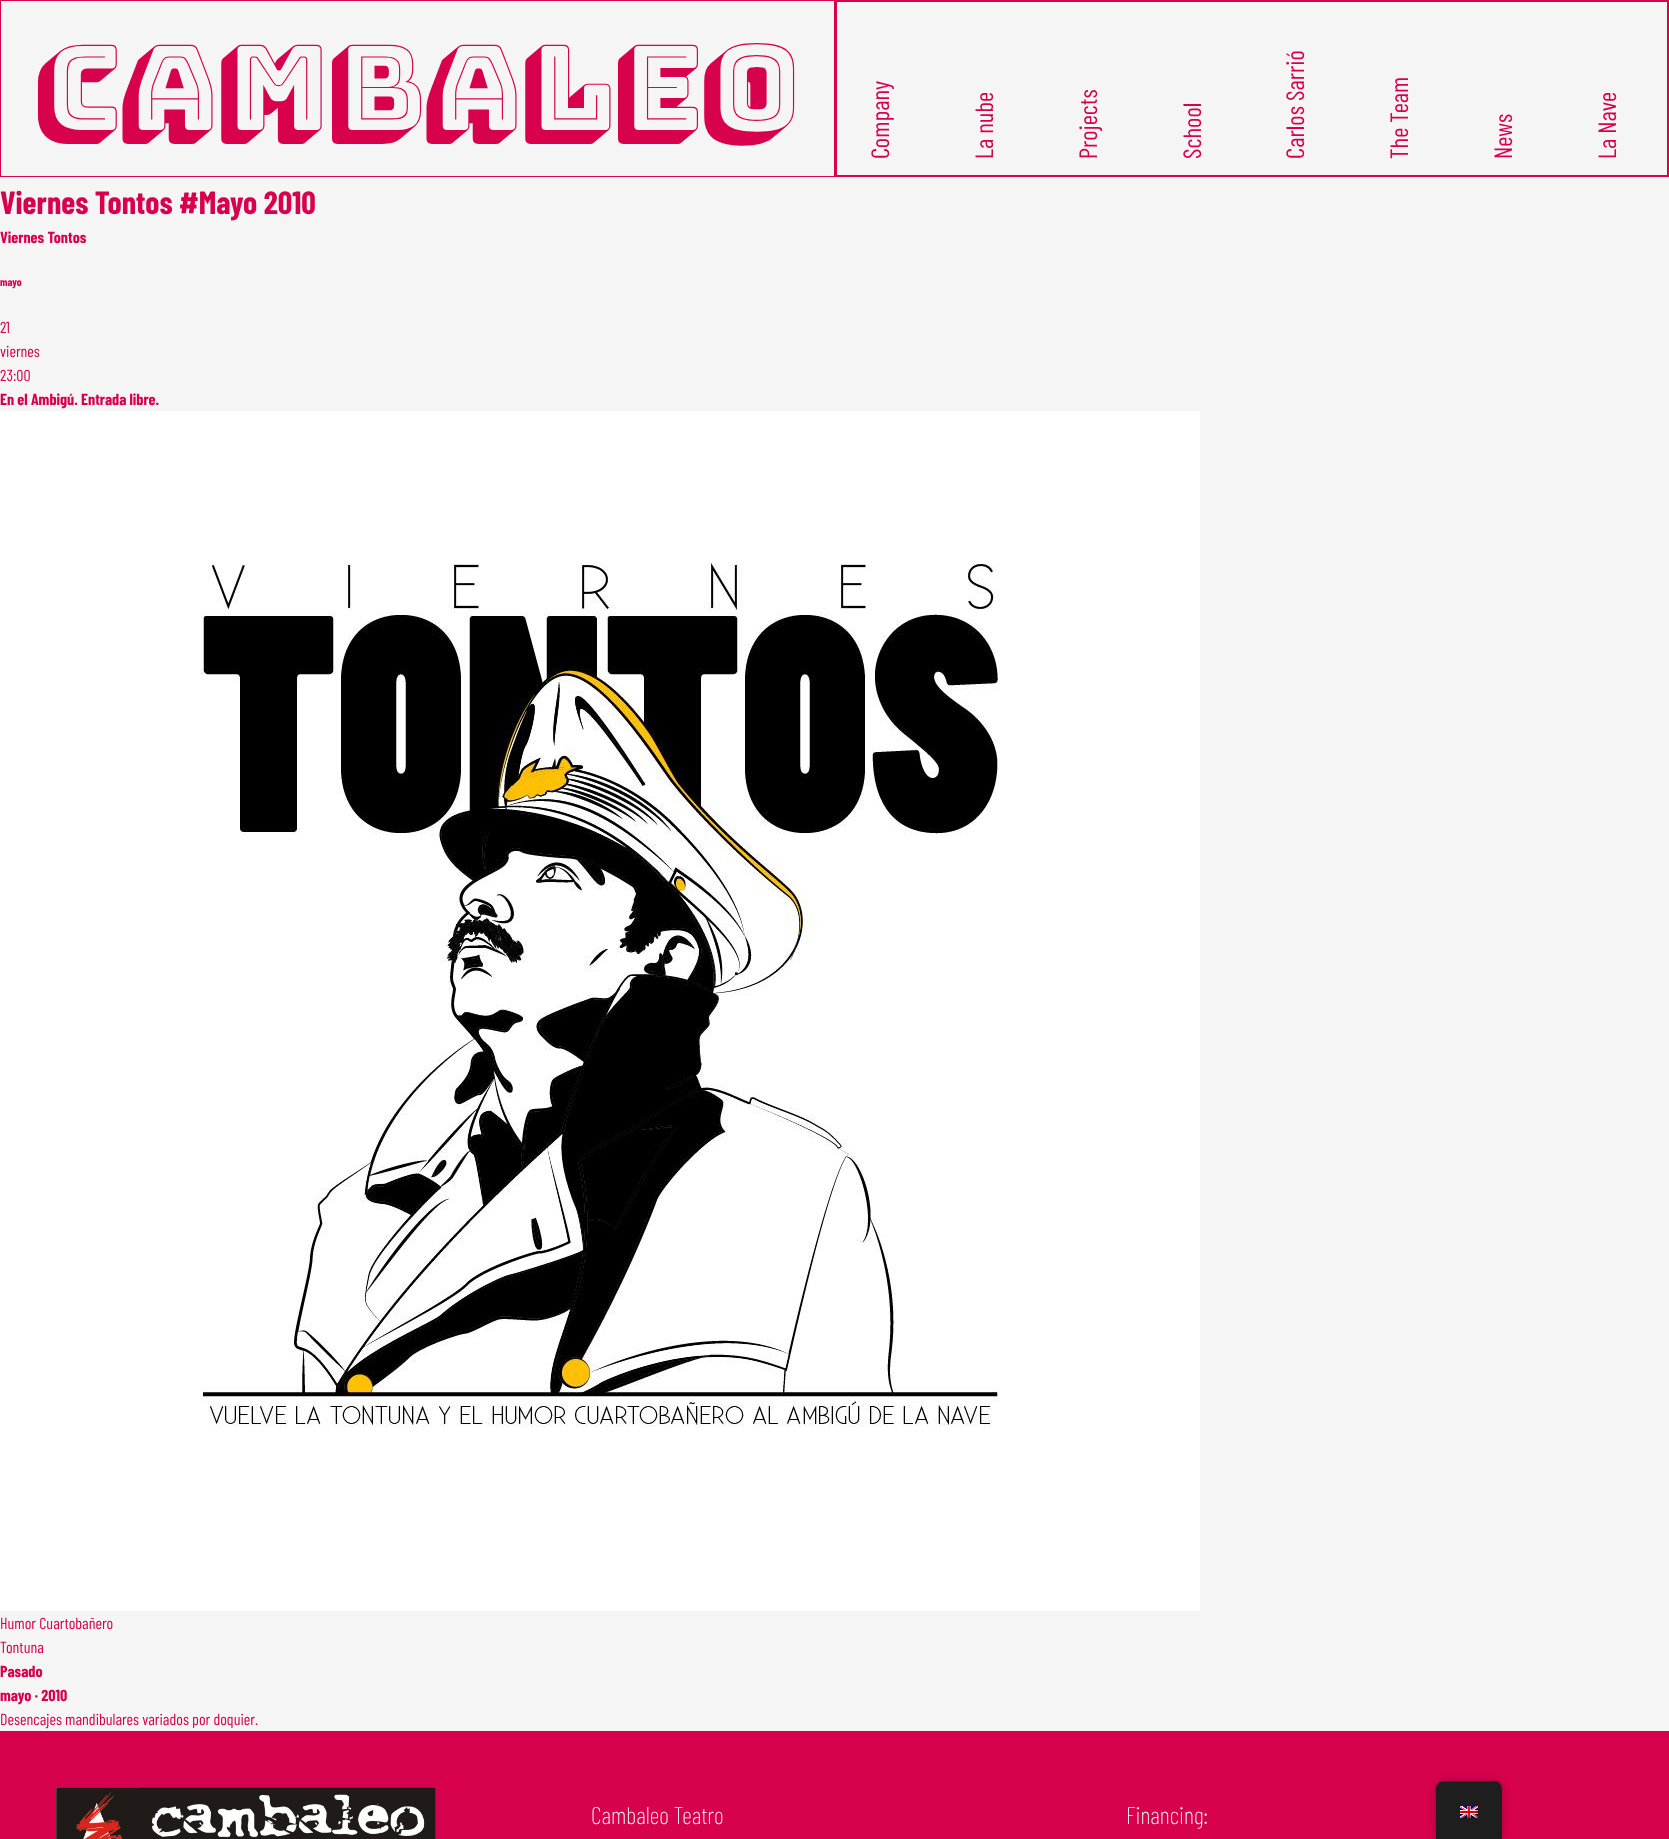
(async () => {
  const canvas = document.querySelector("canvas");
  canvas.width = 1669;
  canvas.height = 1839;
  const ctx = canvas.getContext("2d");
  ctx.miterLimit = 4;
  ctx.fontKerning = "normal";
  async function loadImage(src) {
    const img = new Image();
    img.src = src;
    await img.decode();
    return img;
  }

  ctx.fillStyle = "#f5f5f5";
  ctx.fillRect(0, 0, 1669, 1839);
  ctx.strokeStyle = "#d7014e";
  ctx.strokeRect(0.5, 0.5, 834, 176);
  ctx.strokeRect(835.5, 0.5, 833, 176);
  ctx.strokeRect(836.5, 1.5, 831, 174);
  ctx.drawImage(await loadImage("img/1.png"), 0, 411, 1200, 1200);
  ctx.fillStyle = "#d7014e";
  ctx.fillRect(0, 1731, 1669, 108);
  ctx.drawImage(await loadImage("img/2.png"), 56, 1787, 380, 52);
  ctx.fillStyle = "rgba(0, 0, 0, 0.25)";
  ctx.filter = "blur(4px)";
  ctx.beginPath();
  ctx.roundRect(1436, 1781, 66, 58, 8);
  ctx.fill();
  ctx.filter = "none";
  ctx.fillStyle = "#1e1e1e";
  ctx.beginPath();
  ctx.roundRect(1436, 1781, 66, 58, [8, 8, 0, 0]);
  ctx.fill();
  ctx.drawImage(await loadImage("img/3.png"), 1460, 1806, 18, 12);
  ctx.font = "116.75px Bungee Shade";
  ctx.fillStyle = "#d7014e";
  ctx.fillText("Cambaleo", 34, 130);
  ctx.font = "25px Barlow Condensed";
  ctx.save();
  ctx.translate(889, 159);
  ctx.rotate(-90 * Math.PI / 180);
  ctx.fillText("Company", 0, 0);
  ctx.restore();
  ctx.save();
  ctx.translate(993, 159);
  ctx.rotate(-90 * Math.PI / 180);
  ctx.fillText("La nube", 0, 0);
  ctx.restore();
  ctx.save();
  ctx.translate(1097, 159);
  ctx.rotate(-90 * Math.PI / 180);
  ctx.fillText("Projects", 0, 0);
  ctx.restore();
  ctx.save();
  ctx.translate(1201, 159);
  ctx.rotate(-90 * Math.PI / 180);
  ctx.fillText("School", 0, 0);
  ctx.restore();
  ctx.save();
  ctx.translate(1304, 159);
  ctx.rotate(-90 * Math.PI / 180);
  ctx.fillText("Carlos Sarrió", 0, 0);
  ctx.restore();
  ctx.save();
  ctx.translate(1408, 159);
  ctx.rotate(-90 * Math.PI / 180);
  ctx.fillText("The Team", 0, 0);
  ctx.restore();
  ctx.save();
  ctx.translate(1512, 159);
  ctx.rotate(-90 * Math.PI / 180);
  ctx.fillText("News", 0, 0);
  ctx.restore();
  ctx.save();
  ctx.translate(1616, 159);
  ctx.rotate(-90 * Math.PI / 180);
  ctx.fillText("La Nave", 0, 0);
  ctx.restore();
  ctx.font = "bold 32px Barlow Condensed";
  ctx.fillText("Viernes Tontos #Mayo 2010", 0, 214);
  ctx.font = "bold 16px Barlow Condensed";
  ctx.fillText("Viernes Tontos", 0, 243);
  ctx.font = "bold 11px Barlow Condensed";
  ctx.fillText("mayo", 0, 286);
  ctx.font = "16px Barlow Condensed";
  for (const [text, x, y] of [
    ["21", 0, 333],
    ["viernes", 0, 357],
    ["23:00", 0, 381],
  ]) {
    ctx.fillText(text, x, y);
  }
  ctx.font = "bold 16px Barlow Condensed";
  ctx.fillText("En el Ambigú. Entrada libre.", 0, 405);
  ctx.font = "16px Barlow Condensed";
  ctx.fillText("Humor Cuartobañero", 0, 1629);
  ctx.fillText("Tontuna", 0, 1653);
  ctx.font = "bold 16px Barlow Condensed";
  ctx.fillText("Pasado", 0, 1677);
  ctx.fillText("mayo · 2010", 0, 1701);
  ctx.font = "16px Barlow Condensed";
  ctx.fillText("Desencajes mandibulares variados por doquier.", 0, 1725);
  ctx.font = "200 24px Barlow Condensed";
  ctx.fillStyle = "#f5f5f5";
  ctx.fillText("Cambaleo Teatro", 591, 1824);
  ctx.fillText("Financing:", 1126, 1824);
})();
